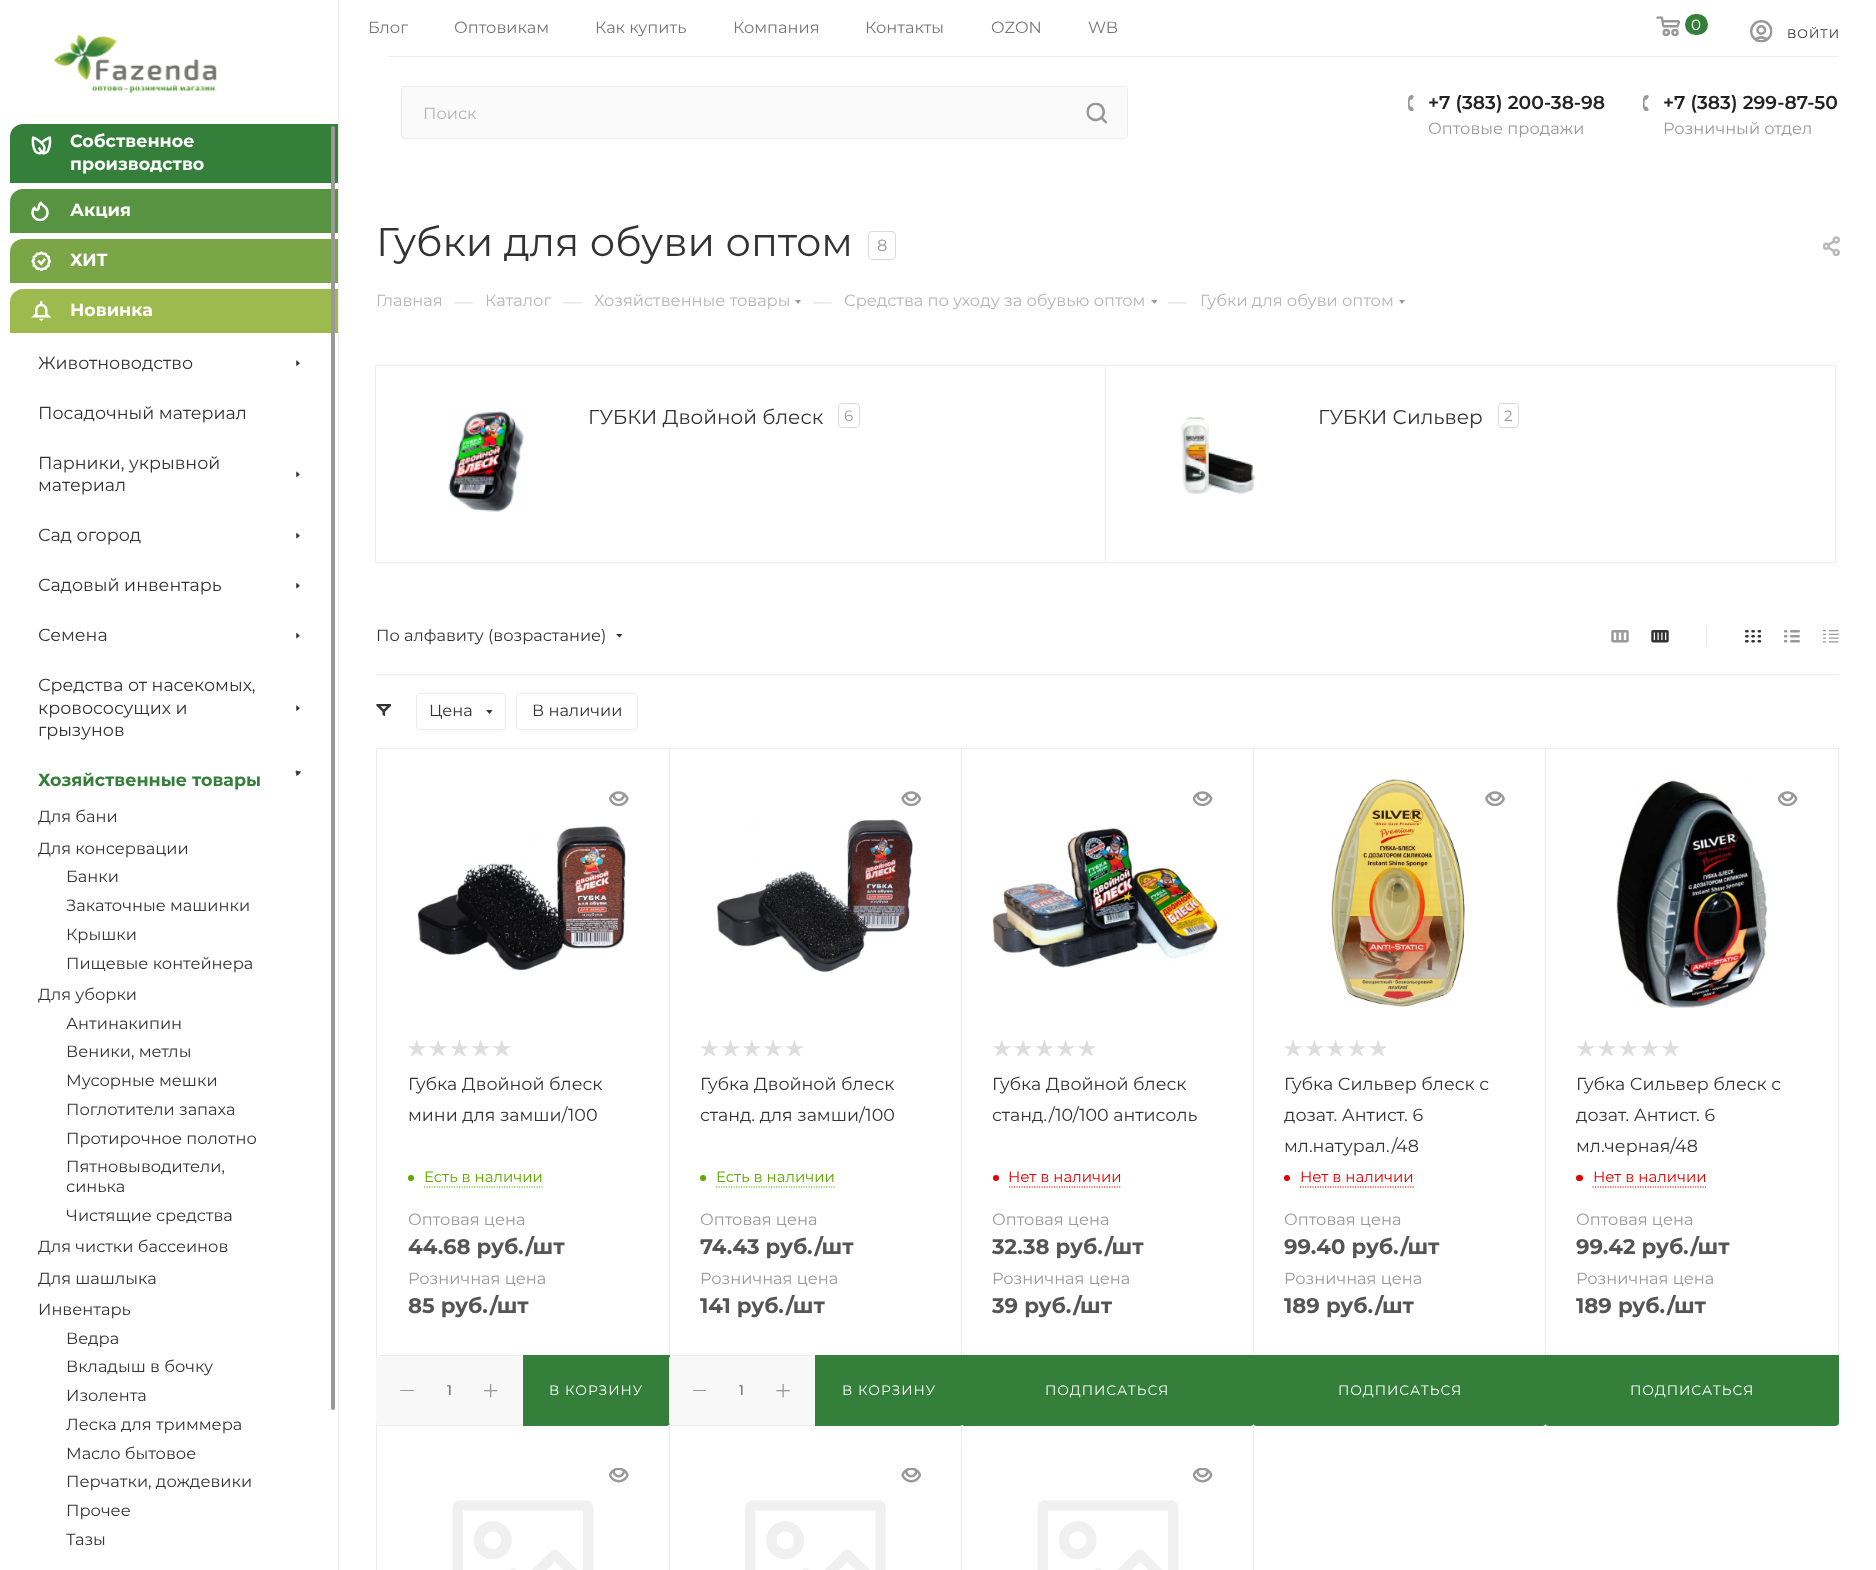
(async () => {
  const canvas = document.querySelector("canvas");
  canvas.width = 1876;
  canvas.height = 1570;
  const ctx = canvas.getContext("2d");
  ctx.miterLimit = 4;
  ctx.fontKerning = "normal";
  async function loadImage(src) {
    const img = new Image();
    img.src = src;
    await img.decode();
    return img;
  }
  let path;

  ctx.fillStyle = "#ffffff";
  ctx.fillRect(0, 0, 1876, 1570);
  ctx.drawImage(await loadImage("img/1.png"), 1656, 16, 24, 21);
  ctx.fillStyle = "#347f3a";
  ctx.beginPath();
  ctx.roundRect(1685, 14, 23, 21, 10.5);
  ctx.fill();
  ctx.drawImage(await loadImage("img/2.png"), 1750, 20, 23, 23);
  ctx.fillStyle = "#ededed";
  ctx.fillRect(389, 56, 1450, 1);
  ctx.fillStyle = "#fafafa";
  ctx.beginPath();
  ctx.roundRect(401.5, 86.5, 726, 52, 3.5);
  ctx.fill();
  ctx.strokeStyle = "#ececec";
  ctx.stroke();
  ctx.drawImage(await loadImage("img/3.png"), 1086, 102, 22, 22);
  ctx.drawImage(await loadImage("img/4.png"), 1408, 95, 6, 16);
  ctx.drawImage(await loadImage("img/4.png"), 1643, 95, 6, 16);
  ctx.fillStyle = "#ececec";
  ctx.fillRect(338, 0, 1, 1570);
  ctx.drawImage(await loadImage("img/5.png"), 53, 35, 164, 59);
  ctx.fillStyle = "#347f3a";
  ctx.beginPath();
  ctx.roundRect(10, 124, 328, 59, [13, 0, 0, 0]);
  ctx.fill();
  ctx.drawImage(await loadImage("img/6.png"), 31, 136, 21, 19);
  ctx.fillStyle = "#579341";
  ctx.beginPath();
  ctx.roundRect(10, 189, 328, 44, [13, 0, 0, 0]);
  ctx.fill();
  ctx.drawImage(await loadImage("img/7.png"), 31, 201, 18, 20);
  ctx.fillStyle = "#7aa648";
  ctx.beginPath();
  ctx.roundRect(10, 239, 328, 44, [13, 0, 0, 0]);
  ctx.fill();
  ctx.drawImage(await loadImage("img/8.png"), 31, 251, 20, 20);
  ctx.fillStyle = "#9cba4e";
  ctx.beginPath();
  ctx.roundRect(10, 289, 328, 44, [13, 0, 0, 0]);
  ctx.fill();
  ctx.drawImage(await loadImage("img/9.png"), 31, 301, 20, 20);
  ctx.drawImage(await loadImage("img/10.png"), 296, 360, 5, 6);
  ctx.drawImage(await loadImage("img/11.png"), 296, 471, 5, 7);
  ctx.drawImage(await loadImage("img/12.png"), 296, 532, 5, 7);
  ctx.drawImage(await loadImage("img/12.png"), 296, 582, 5, 7);
  ctx.drawImage(await loadImage("img/12.png"), 296, 632, 5, 7);
  ctx.drawImage(await loadImage("img/10.png"), 296, 705, 5, 6);
  ctx.drawImage(await loadImage("img/10.png"), 296, 770, 5, 6);
  ctx.drawImage(await loadImage("img/13.png"), 295, 771, 6, 5);
  ctx.fillStyle = "#999999";
  ctx.beginPath();
  ctx.roundRect(331, 126, 4, 1284, 2);
  ctx.fill();
  ctx.beginPath();
  ctx.roundRect(868.5, 231.5, 27, 28, 3.5);
  ctx.strokeStyle = "#dbdbdb";
  ctx.stroke();
  ctx.drawImage(await loadImage("img/14.png"), 1823, 236, 17, 20);
  path = new Path2D("M795 300H801L798 304Z");
  ctx.fill(path, "evenodd");
  path = new Path2D("M1151 300H1157.5L1154.5 304Z");
  ctx.fill(path, "evenodd");
  path = new Path2D("M1399 300H1405L1402 304Z");
  ctx.fill(path, "evenodd");
  ctx.strokeStyle = "#ececec";
  ctx.strokeRect(375.5, 365.5, 730, 197);
  ctx.drawImage(await loadImage("img/15.png"), 448, 411, 76, 101);
  ctx.beginPath();
  ctx.roundRect(838.5, 403.5, 21, 24, 3.5);
  ctx.strokeStyle = "#dbdbdb";
  ctx.stroke();
  ctx.strokeStyle = "#ececec";
  ctx.strokeRect(1105.5, 365.5, 730, 197);
  ctx.drawImage(await loadImage("img/16.png"), 1181, 417, 75, 77);
  ctx.beginPath();
  ctx.roundRect(1498.5, 403.5, 20, 24, 3.5);
  ctx.strokeStyle = "#dbdbdb";
  ctx.stroke();
  ctx.fillStyle = "#ececec";
  ctx.fillRect(376, 674, 1463, 1);
  ctx.fillStyle = "#333333";
  path = new Path2D("M616 634H622.5L619.5 637.5Z");
  ctx.fill(path, "evenodd");
  ctx.drawImage(await loadImage("img/17.png"), 1611, 630, 18, 13);
  ctx.drawImage(await loadImage("img/18.png"), 1651, 630, 18, 13);
  ctx.fillStyle = "#ececec";
  ctx.fillRect(1706, 626, 1, 20);
  ctx.drawImage(await loadImage("img/19.png"), 1745, 630, 16, 13);
  ctx.drawImage(await loadImage("img/20.png"), 1784, 630, 16, 13);
  ctx.drawImage(await loadImage("img/21.png"), 1823, 630, 16, 13);
  ctx.drawImage(await loadImage("img/22.png"), 376, 704, 15, 12);
  ctx.beginPath();
  ctx.roundRect(416.5, 693.5, 89, 36, 3.5);
  ctx.strokeStyle = "#ececec";
  ctx.stroke();
  ctx.fillStyle = "#333333";
  path = new Path2D("M486 710H492.5L489.5 714Z");
  ctx.fill(path, "evenodd");
  ctx.beginPath();
  ctx.roundRect(516.5, 693.5, 121, 36, 3.5);
  ctx.stroke();
  ctx.strokeRect(376.5, 748.5, 293, 676);
  ctx.drawImage(await loadImage("img/23.png"), 609, 791, 20, 15);
  ctx.drawImage(await loadImage("img/24.png"), 417, 826, 209, 145);
  ctx.drawImage(await loadImage("img/25.png"), 408, 1040, 18, 16);
  ctx.drawImage(await loadImage("img/26.png"), 429, 1040, 18, 16);
  ctx.drawImage(await loadImage("img/27.png"), 450, 1040, 18, 16);
  ctx.drawImage(await loadImage("img/28.png"), 472, 1040, 18, 16);
  ctx.drawImage(await loadImage("img/25.png"), 493, 1040, 18, 16);
  ctx.fillStyle = "#5fa800";
  ctx.beginPath();
  ctx.arc(411, 1178, 3, 0, Math.PI * 2);
  ctx.fill();
  path = new Path2D("M424 1187H542.5");
  ctx.strokeStyle = "#5fa800";
  ctx.lineWidth = 1.2;
  ctx.setLineDash([1.25, 1.25]);
  ctx.stroke(path);
  ctx.strokeStyle = "#ececec";
  ctx.lineWidth = 1;
  ctx.setLineDash([]);
  ctx.strokeRect(669.5, 748.5, 293, 676);
  ctx.strokeRect(376.5, 1424.5, 293, 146);
  ctx.fillStyle = "#f8f8f8";
  path = new Path2D("M380 1356H519C521 1356 522 1357 522 1359V1422C522 1424 521 1425 519 1425H380C378 1425 376 1424 376 1422V1359C376 1357 378 1356 380 1356Z");
  ctx.fill(path);
  ctx.fillStyle = "#ececec";
  ctx.fillRect(379, 1355, 142, 1);
  ctx.fillRect(379, 1425, 142, 1);
  ctx.fillStyle = "#969696";
  ctx.beginPath();
  ctx.roundRect(400, 1390, 14, 1, 0.5);
  ctx.fill();
  ctx.drawImage(await loadImage("img/29.png"), 484, 1384, 14, 14);
  ctx.fillStyle = "#ffffff";
  ctx.fillRect(962, 749, 1, 606);
  ctx.strokeRect(961.5, 748.5, 292, 676);
  ctx.strokeRect(669.5, 1424.5, 293, 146);
  ctx.save();
  ctx.beginPath();
  ctx.roundRect(376, 1355, 294, 71, [0, 0, 4, 4]);
  ctx.clip();
  ctx.fillStyle = "#347f3a";
  ctx.fillRect(523, 1356, 147, 69);
  ctx.restore();
  ctx.fillStyle = "#347f3a";
  ctx.fillRect(523, 1355, 147, 1);
  ctx.save();
  ctx.beginPath();
  ctx.roundRect(376, 1355, 294, 71, [0, 0, 4, 4]);
  ctx.clip();
  ctx.fillRect(523, 1425, 147, 1);
  ctx.restore();
  ctx.drawImage(await loadImage("img/30.png"), 901, 791, 20, 15);
  ctx.drawImage(await loadImage("img/31.png"), 717, 819, 196, 154);
  ctx.drawImage(await loadImage("img/27.png"), 700, 1040, 18, 16);
  ctx.drawImage(await loadImage("img/28.png"), 722, 1040, 18, 16);
  ctx.drawImage(await loadImage("img/25.png"), 743, 1040, 18, 16);
  ctx.drawImage(await loadImage("img/26.png"), 764, 1040, 18, 16);
  ctx.drawImage(await loadImage("img/27.png"), 785, 1040, 18, 16);
  ctx.fillStyle = "#5fa800";
  ctx.beginPath();
  ctx.arc(703, 1178, 3, 0, Math.PI * 2);
  ctx.fill();
  path = new Path2D("M716 1187H835");
  ctx.strokeStyle = "#5fa800";
  ctx.lineWidth = 1.2;
  ctx.setLineDash([1.25, 1.25]);
  ctx.stroke(path);
  ctx.fillStyle = "#f8f8f8";
  path = new Path2D("M672 1356H811C813 1356 815 1357 815 1359V1422C815 1424 813 1425 811 1425H672C670 1425 669 1424 669 1422V1359C669 1357 670 1356 672 1356Z");
  ctx.fill(path);
  ctx.fillStyle = "#ececec";
  ctx.fillRect(671, 1355, 143, 1);
  ctx.fillRect(671, 1425, 143, 1);
  ctx.fillStyle = "#969696";
  ctx.beginPath();
  ctx.roundRect(693, 1390, 13, 1, 0.5);
  ctx.fill();
  ctx.drawImage(await loadImage("img/32.png"), 776, 1384, 14, 14);
  ctx.strokeStyle = "#ececec";
  ctx.lineWidth = 1;
  ctx.setLineDash([]);
  ctx.strokeRect(1253.5, 748.5, 292, 676);
  ctx.fillStyle = "#ffffff";
  ctx.fillRect(962, 1425, 1, 145);
  ctx.strokeRect(961.5, 1424.5, 292, 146);
  ctx.fillStyle = "#347f3a";
  ctx.fillRect(815, 1355, 148, 70);
  ctx.save();
  ctx.beginPath();
  ctx.roundRect(669, 1355, 294, 71, [0, 0, 4, 4]);
  ctx.clip();
  ctx.fillRect(815, 1425, 148, 1);
  ctx.restore();
  ctx.drawImage(await loadImage("img/33.png"), 1193, 791, 20, 15);
  ctx.drawImage(await loadImage("img/34.png"), 992, 828, 226, 140);
  ctx.drawImage(await loadImage("img/25.png"), 993, 1040, 18, 16);
  ctx.drawImage(await loadImage("img/26.png"), 1014, 1040, 18, 16);
  ctx.drawImage(await loadImage("img/27.png"), 1035, 1040, 18, 16);
  ctx.drawImage(await loadImage("img/28.png"), 1057, 1040, 18, 16);
  ctx.drawImage(await loadImage("img/25.png"), 1078, 1040, 18, 16);
  ctx.fillStyle = "#e10000";
  ctx.beginPath();
  ctx.arc(996, 1178, 3, 0, Math.PI * 2);
  ctx.fill();
  path = new Path2D("M1009 1187H1121");
  ctx.strokeStyle = "#e10000";
  ctx.lineWidth = 1.2;
  ctx.setLineDash([1.25, 1.25]);
  ctx.stroke(path);
  ctx.save();
  ctx.beginPath();
  ctx.roundRect(961, 1355, 293, 71, [0, 0, 4, 4]);
  ctx.clip();
  ctx.fillStyle = "#347f3a";
  ctx.fillRect(961, 1356, 293, 69);
  ctx.restore();
  ctx.strokeStyle = "#ececec";
  ctx.lineWidth = 1;
  ctx.setLineDash([]);
  ctx.strokeRect(1545.5, 748.5, 293, 676);
  ctx.fillStyle = "#347f3a";
  ctx.fillRect(961, 1355, 878, 1);
  ctx.save();
  ctx.beginPath();
  ctx.roundRect(961, 1355, 293, 71, [0, 0, 4, 4]);
  ctx.clip();
  ctx.fillRect(961, 1425, 293, 1);
  ctx.restore();
  ctx.drawImage(await loadImage("img/35.png"), 1331, 779, 134, 228);
  ctx.drawImage(await loadImage("img/36.png"), 1485, 791, 20, 15);
  ctx.drawImage(await loadImage("img/26.png"), 1284, 1040, 18, 16);
  ctx.drawImage(await loadImage("img/27.png"), 1305, 1040, 18, 16);
  ctx.drawImage(await loadImage("img/28.png"), 1327, 1040, 18, 16);
  ctx.drawImage(await loadImage("img/25.png"), 1348, 1040, 18, 16);
  ctx.drawImage(await loadImage("img/26.png"), 1369, 1040, 18, 16);
  ctx.fillStyle = "#e10000";
  ctx.beginPath();
  ctx.arc(1287, 1178, 3, 0, Math.PI * 2);
  ctx.fill();
  path = new Path2D("M1300 1187H1414");
  ctx.strokeStyle = "#e10000";
  ctx.lineWidth = 1.2;
  ctx.setLineDash([1.25, 1.25]);
  ctx.stroke(path);
  ctx.save();
  ctx.beginPath();
  ctx.roundRect(1253, 1355, 293, 71, [0, 0, 4, 4]);
  ctx.clip();
  ctx.fillStyle = "#347f3a";
  ctx.fillRect(1253, 1356, 293, 69);
  ctx.fillRect(1253, 1425, 293, 1);
  ctx.restore();
  ctx.drawImage(await loadImage("img/37.png"), 1616, 779, 152, 229);
  ctx.drawImage(await loadImage("img/33.png"), 1778, 791, 20, 15);
  ctx.drawImage(await loadImage("img/28.png"), 1577, 1040, 18, 16);
  ctx.drawImage(await loadImage("img/25.png"), 1598, 1040, 18, 16);
  ctx.drawImage(await loadImage("img/26.png"), 1619, 1040, 18, 16);
  ctx.drawImage(await loadImage("img/27.png"), 1640, 1040, 18, 16);
  ctx.drawImage(await loadImage("img/28.png"), 1662, 1040, 18, 16);
  ctx.beginPath();
  ctx.roundRect(1576, 1175, 7, 6, 3);
  ctx.fill();
  path = new Path2D("M1592.5 1187H1706");
  ctx.stroke(path);
  ctx.save();
  ctx.beginPath();
  ctx.roundRect(1545, 1355, 294, 71, [0, 0, 4, 4]);
  ctx.clip();
  ctx.fillStyle = "#347f3a";
  ctx.fillRect(1545, 1356, 294, 69);
  ctx.fillRect(1545, 1425, 294, 1);
  ctx.restore();
  ctx.drawImage(await loadImage("img/38.png"), 609, 1468, 20, 15);
  ctx.drawImage(await loadImage("img/39.png"), 452, 1500, 142, 70);
  ctx.drawImage(await loadImage("img/40.png"), 901, 1468, 20, 15);
  ctx.drawImage(await loadImage("img/41.png"), 745, 1500, 141, 70);
  ctx.drawImage(await loadImage("img/42.png"), 1193, 1468, 20, 15);
  ctx.drawImage(await loadImage("img/39.png"), 1037, 1500, 142, 70);
  ctx.font = "16.25px Montserrat";
  ctx.fillStyle = "#777777";
  for (const [text, x, y] of [
    ["Блог", 368, 33],
    ["Оптовикам", 454, 33],
    ["Как купить", 595, 33],
    ["Компания", 733, 33],
    ["Контакты", 865, 33],
    ["OZON", 991, 33],
    ["WB", 1088, 33],
  ]) {
    ctx.fillText(text, x, y);
  }
  ctx.font = "15px Montserrat";
  ctx.fillStyle = "#ffffff";
  ctx.fillText("0", 1691, 30);
  ctx.letterSpacing = "1px";
  ctx.font = "12.5px Montserrat";
  ctx.fillStyle = "#333333";
  ctx.fillText("ВОЙТИ", 1787, 38);
  ctx.letterSpacing = "0px";
  ctx.font = "16.25px Montserrat";
  ctx.fillStyle = "#b6b5b5";
  ctx.fillText("Поиск", 423, 119);
  ctx.font = "600 18.75px Montserrat";
  ctx.fillStyle = "#222222";
  ctx.fillText("+7 (383) 200-38-98", 1428, 109);
  ctx.font = "16.25px Montserrat";
  ctx.fillStyle = "#999999";
  ctx.fillText("Оптовые продажи", 1428, 134);
  ctx.font = "600 18.75px Montserrat";
  ctx.fillStyle = "#222222";
  ctx.fillText("+7 (383) 299-87-50", 1663, 109);
  ctx.font = "16.25px Montserrat";
  ctx.fillStyle = "#999999";
  ctx.fillText("Розничный отдел", 1663, 134);
  ctx.font = "bold 17.5px Montserrat";
  ctx.fillStyle = "#ffffff";
  for (const [text, x, y] of [
    ["Собственное", 70, 147],
    ["производство", 70, 170],
    ["Акция", 70, 216],
    ["ХИТ", 70, 266],
    ["Новинка", 70, 316],
  ]) {
    ctx.fillText(text, x, y);
  }
  ctx.font = "17.5px Montserrat";
  ctx.fillStyle = "#333333";
  for (const [text, x, y] of [
    ["Животноводство", 38, 369],
    ["Посадочный материал", 38, 419],
    ["Парники, укрывной", 38, 469],
    ["материал", 38, 491],
    ["Сад огород", 38, 541],
    ["Садовый инвентарь", 38, 591],
    ["Семена", 38, 641],
    ["Средства от насекомых,", 38, 691],
    ["кровососущих и", 38, 714],
    ["грызунов", 38, 736],
  ]) {
    ctx.fillText(text, x, y);
  }
  ctx.font = "bold 17.5px Montserrat";
  ctx.fillStyle = "#347f3a";
  ctx.fillText("Хозяйственные товары", 38, 786);
  ctx.font = "16.25px Montserrat";
  ctx.fillStyle = "#333333";
  for (const [text, x, y] of [
    ["Для бани", 38, 822],
    ["Для консервации", 38, 854],
    ["Банки", 66, 882],
    ["Закаточные машинки", 66, 911],
    ["Крышки", 66, 940],
    ["Пищевые контейнера", 66, 969],
    ["Для уборки", 38, 1000],
    ["Антинакипин", 66, 1029],
    ["Веники, метлы", 66, 1057],
    ["Мусорные мешки", 66, 1086],
    ["Поглотители запаха", 66, 1115],
    ["Протирочное полотно", 66, 1144],
    ["Пятновыводители,", 66, 1172],
    ["синька", 66, 1192],
    ["Чистящие средства", 66, 1221],
    ["Для чистки бассеинов", 38, 1252],
    ["Для шашлыка", 38, 1284],
    ["Инвентарь", 38, 1315],
    ["Ведра", 66, 1344],
    ["Вкладыш в бочку", 66, 1372],
    ["Изолента", 66, 1401],
    ["Леска для триммера", 66, 1430],
    ["Масло бытовое", 66, 1459],
    ["Перчатки, дождевики", 66, 1487],
    ["Прочее", 66, 1516],
    ["Тазы", 66, 1545],
  ]) {
    ctx.fillText(text, x, y);
  }
  ctx.font = "40px Montserrat";
  ctx.fillText("Губки для обуви оптом", 376, 256);
  ctx.font = "16.25px Montserrat";
  ctx.fillStyle = "#999999";
  ctx.fillText("8", 877, 251);
  ctx.fillStyle = "#b6b5b5";
  ctx.fillText("Главная", 376, 306);
  ctx.font = "18.75px Montserrat";
  ctx.fillStyle = "#dddddd";
  ctx.fillText("—", 454, 308);
  ctx.font = "16.25px Montserrat";
  ctx.fillStyle = "#b6b5b5";
  ctx.fillText("Каталог", 485, 306);
  ctx.font = "18.75px Montserrat";
  ctx.fillStyle = "#dddddd";
  ctx.fillText("—", 563, 308);
  ctx.font = "16.25px Montserrat";
  ctx.fillStyle = "#b6b5b5";
  ctx.fillText("Хозяйственные товары", 594, 306);
  ctx.font = "18.75px Montserrat";
  ctx.fillStyle = "#dddddd";
  ctx.fillText("—", 813, 308);
  ctx.font = "16.25px Montserrat";
  ctx.fillStyle = "#b6b5b5";
  ctx.fillText("Средства по уходу за обувью оптом", 844, 306);
  ctx.font = "18.75px Montserrat";
  ctx.fillStyle = "#dddddd";
  ctx.fillText("—", 1168, 308);
  ctx.font = "16.25px Montserrat";
  ctx.fillStyle = "#b6b5b5";
  ctx.fillText("Губки для обуви оптом", 1200, 306);
  ctx.font = "20px Montserrat";
  ctx.fillStyle = "#333333";
  ctx.fillText("ГУБКИ Двойной блеск", 588, 424);
  ctx.font = "15px Montserrat";
  ctx.fillStyle = "#999999";
  ctx.fillText("6", 844, 421);
  ctx.font = "20px Montserrat";
  ctx.fillStyle = "#333333";
  ctx.fillText("ГУБКИ Сильвер", 1318, 424);
  ctx.font = "15px Montserrat";
  ctx.fillStyle = "#999999";
  ctx.fillText("2", 1504, 421);
  ctx.font = "16.25px Montserrat";
  ctx.fillStyle = "#333333";
  for (const [text, x, y] of [
    ["По алфавиту (возрастание)", 376, 641],
    ["Цена", 429, 716],
    ["В наличии", 532, 716],
  ]) {
    ctx.fillText(text, x, y);
  }
  ctx.font = "17.5px Montserrat";
  ctx.fillText("Губка Двойной блеск", 408, 1090);
  ctx.fillText("мини для замши/100", 408, 1121);
  ctx.font = "15px Montserrat";
  ctx.fillStyle = "#5fa800";
  ctx.fillText("Есть в наличии", 424, 1182);
  ctx.font = "16.25px Montserrat";
  ctx.fillStyle = "#999999";
  ctx.fillText("Оптовая цена", 408, 1225);
  ctx.font = "bold 21.25px Montserrat";
  ctx.fillStyle = "#555555";
  ctx.fillText("44.68 руб./шт", 408, 1254);
  ctx.font = "16.25px Montserrat";
  ctx.fillStyle = "#999999";
  ctx.fillText("Розничная цена", 408, 1284);
  ctx.font = "bold 21.25px Montserrat";
  ctx.fillStyle = "#555555";
  ctx.fillText("85 руб./шт", 408, 1313);
  ctx.font = "13.75px Montserrat";
  ctx.fillStyle = "#333333";
  ctx.fillText("1", 447, 1395);
  ctx.letterSpacing = "1px";
  ctx.fillStyle = "#ffffff";
  ctx.fillText("В КОРЗИНУ", 549, 1395);
  ctx.letterSpacing = "0px";
  ctx.font = "17.5px Montserrat";
  ctx.fillStyle = "#333333";
  ctx.fillText("Губка Двойной блеск", 700, 1090);
  ctx.fillText("станд. для замши/100", 700, 1121);
  ctx.font = "15px Montserrat";
  ctx.fillStyle = "#5fa800";
  ctx.fillText("Есть в наличии", 716, 1182);
  ctx.font = "16.25px Montserrat";
  ctx.fillStyle = "#999999";
  ctx.fillText("Оптовая цена", 700, 1225);
  ctx.font = "bold 21.25px Montserrat";
  ctx.fillStyle = "#555555";
  ctx.fillText("74.43 руб./шт", 700, 1254);
  ctx.font = "16.25px Montserrat";
  ctx.fillStyle = "#999999";
  ctx.fillText("Розничная цена", 700, 1284);
  ctx.font = "bold 21.25px Montserrat";
  ctx.fillStyle = "#555555";
  ctx.fillText("141 руб./шт", 700, 1313);
  ctx.font = "13.75px Montserrat";
  ctx.fillStyle = "#333333";
  ctx.fillText("1", 739, 1395);
  ctx.letterSpacing = "1px";
  ctx.fillStyle = "#ffffff";
  ctx.fillText("В КОРЗИНУ", 842, 1395);
  ctx.letterSpacing = "0px";
  ctx.font = "17.5px Montserrat";
  ctx.fillStyle = "#333333";
  ctx.fillText("Губка Двойной блеск", 992, 1090);
  ctx.fillText("станд./10/100 антисоль", 992, 1121);
  ctx.font = "15px Montserrat";
  ctx.fillStyle = "#e10000";
  ctx.fillText("Нет в наличии", 1008, 1182);
  ctx.font = "16.25px Montserrat";
  ctx.fillStyle = "#999999";
  ctx.fillText("Оптовая цена", 992, 1225);
  ctx.font = "bold 21.25px Montserrat";
  ctx.fillStyle = "#555555";
  ctx.fillText("32.38 руб./шт", 992, 1254);
  ctx.font = "16.25px Montserrat";
  ctx.fillStyle = "#999999";
  ctx.fillText("Розничная цена", 992, 1284);
  ctx.font = "bold 21.25px Montserrat";
  ctx.fillStyle = "#555555";
  ctx.fillText("39 руб./шт", 992, 1313);
  ctx.letterSpacing = "1px";
  ctx.font = "13.75px Montserrat";
  ctx.fillStyle = "#ffffff";
  ctx.fillText("ПОДПИСАТЬСЯ", 1045, 1395);
  ctx.letterSpacing = "0px";
  ctx.font = "17.5px Montserrat";
  ctx.fillStyle = "#333333";
  for (const [text, x, y] of [
    ["Губка Сильвер блеск с", 1284, 1090],
    ["дозат. Антист. 6", 1284, 1121],
    ["мл.натурал./48", 1284, 1152],
  ]) {
    ctx.fillText(text, x, y);
  }
  ctx.font = "15px Montserrat";
  ctx.fillStyle = "#e10000";
  ctx.fillText("Нет в наличии", 1300, 1182);
  ctx.font = "16.25px Montserrat";
  ctx.fillStyle = "#999999";
  ctx.fillText("Оптовая цена", 1284, 1225);
  ctx.font = "bold 21.25px Montserrat";
  ctx.fillStyle = "#555555";
  ctx.fillText("99.40 руб./шт", 1284, 1254);
  ctx.font = "16.25px Montserrat";
  ctx.fillStyle = "#999999";
  ctx.fillText("Розничная цена", 1284, 1284);
  ctx.font = "bold 21.25px Montserrat";
  ctx.fillStyle = "#555555";
  ctx.fillText("189 руб./шт", 1284, 1313);
  ctx.letterSpacing = "1px";
  ctx.font = "13.75px Montserrat";
  ctx.fillStyle = "#ffffff";
  ctx.fillText("ПОДПИСАТЬСЯ", 1338, 1395);
  ctx.letterSpacing = "0px";
  ctx.font = "17.5px Montserrat";
  ctx.fillStyle = "#333333";
  for (const [text, x, y] of [
    ["Губка Сильвер блеск с", 1576, 1090],
    ["дозат. Антист. 6", 1576, 1121],
    ["мл.черная/48", 1576, 1152],
  ]) {
    ctx.fillText(text, x, y);
  }
  ctx.font = "15px Montserrat";
  ctx.fillStyle = "#e10000";
  ctx.fillText("Нет в наличии", 1593, 1182);
  ctx.font = "16.25px Montserrat";
  ctx.fillStyle = "#999999";
  ctx.fillText("Оптовая цена", 1576, 1225);
  ctx.font = "bold 21.25px Montserrat";
  ctx.fillStyle = "#555555";
  ctx.fillText("99.42 руб./шт", 1576, 1254);
  ctx.font = "16.25px Montserrat";
  ctx.fillStyle = "#999999";
  ctx.fillText("Розничная цена", 1576, 1284);
  ctx.font = "bold 21.25px Montserrat";
  ctx.fillStyle = "#555555";
  ctx.fillText("189 руб./шт", 1576, 1313);
  ctx.letterSpacing = "1px";
  ctx.font = "13.75px Montserrat";
  ctx.fillStyle = "#ffffff";
  ctx.fillText("ПОДПИСАТЬСЯ", 1630, 1395);
})();
